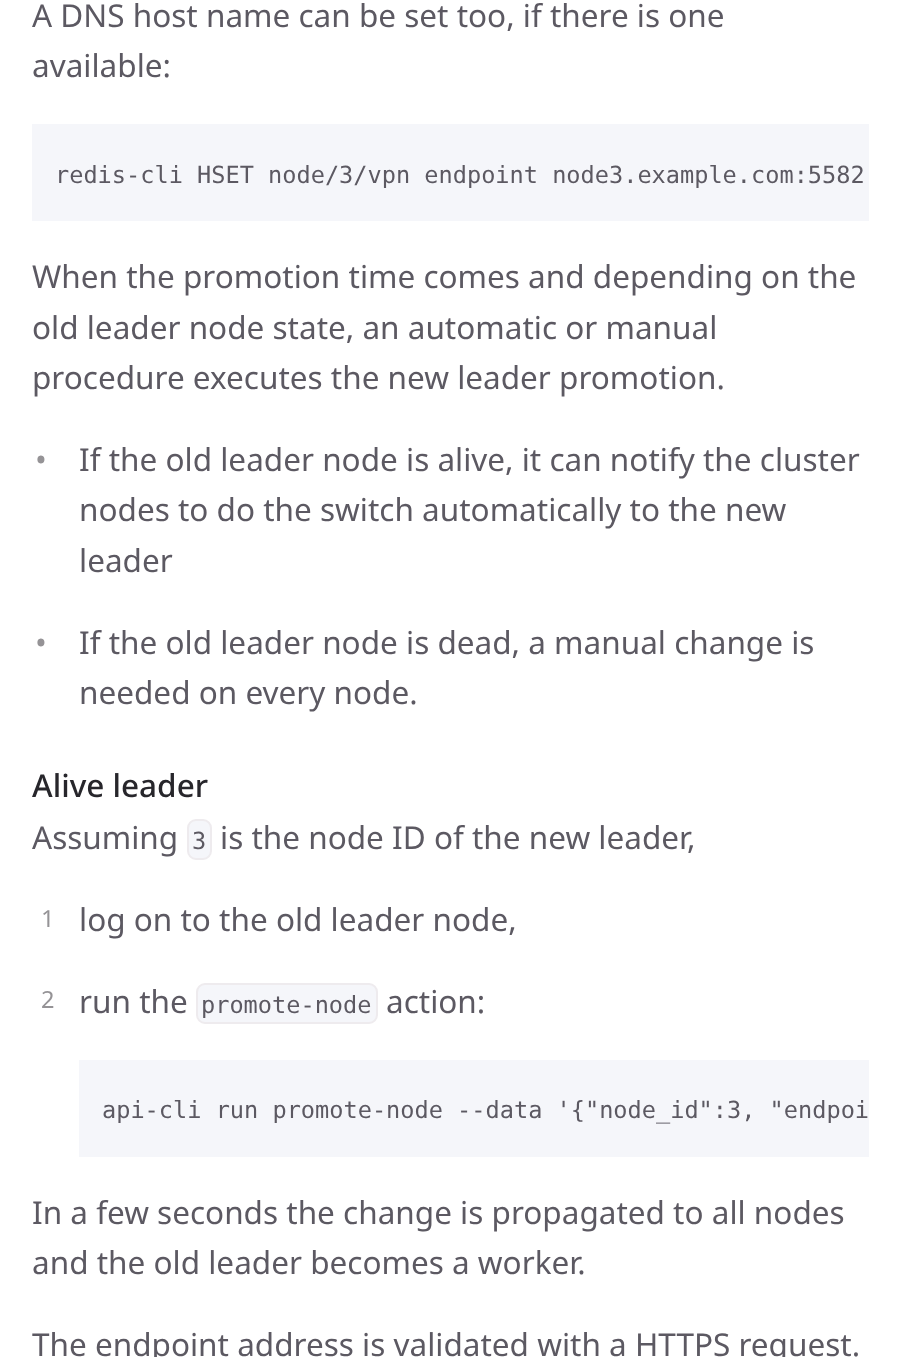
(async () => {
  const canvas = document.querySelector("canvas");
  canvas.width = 898;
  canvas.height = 1357;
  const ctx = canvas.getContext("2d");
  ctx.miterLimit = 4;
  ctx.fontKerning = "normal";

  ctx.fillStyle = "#ffffff";
  ctx.fillRect(0, 0, 898, 1357);
  ctx.fillStyle = "#f5f6fa";
  ctx.fillRect(32, 124, 837, 97);
  ctx.beginPath();
  ctx.roundRect(188, 820, 23, 39, 8);
  ctx.fill();
  ctx.strokeStyle = "#eeebee";
  ctx.lineWidth = 2;
  ctx.stroke();
  ctx.beginPath();
  ctx.roundRect(197, 984, 180, 39, 8);
  ctx.fill();
  ctx.stroke();
  ctx.fillRect(79, 1060, 790, 97);
  ctx.font = "31.5px Noto Sans";
  ctx.fillStyle = "#5c5962";
  ctx.fillText("A DNS host name can be set too, if there is one", 32, 27);
  ctx.fillText("available:", 32, 77);
  ctx.font = "23.6px DejaVu Sans Mono";
  ctx.fillText("redis-cli HSET node/3/vpn endpoint node3.example.com:5582", 55, 183);
  ctx.font = "31.5px Noto Sans";
  for (const [text, x, y] of [
    ["When the promotion time comes and depending on the", 32, 288],
    ["old leader node state, an automatic or manual", 32, 339],
    ["procedure executes the new leader promotion.", 32, 389],
  ]) {
    ctx.fillText(text, x, y);
  }
  ctx.fillStyle = "#959396";
  ctx.fillText("•", 35, 471);
  ctx.fillStyle = "#5c5962";
  for (const [text, x, y] of [
    ["If the old leader node is alive, it can notify the cluster", 79, 471],
    ["nodes to do the switch automatically to the new", 79, 521],
    ["leader", 79, 572],
  ]) {
    ctx.fillText(text, x, y);
  }
  ctx.fillStyle = "#959396";
  ctx.fillText("•", 35, 654);
  ctx.fillStyle = "#5c5962";
  ctx.fillText("If the old leader node is dead, a manual change is", 79, 654);
  ctx.fillText("needed on every node.", 79, 704);
  ctx.font = "500 31.5px Noto Sans";
  ctx.fillStyle = "#27262b";
  ctx.fillText("Alive leader", 32, 797);
  ctx.font = "31.5px Noto Sans";
  ctx.fillStyle = "#5c5962";
  ctx.fillText("Assuming", 32, 849);
  ctx.font = "23.6px DejaVu Sans Mono";
  ctx.fillText("3", 192, 849);
  ctx.font = "31.5px Noto Sans";
  ctx.fillText("is the node ID of the new leader,", 220, 849);
  ctx.font = "23.6px Noto Sans";
  ctx.fillStyle = "#959396";
  ctx.fillText("1", 41, 927);
  ctx.font = "31.5px Noto Sans";
  ctx.fillStyle = "#5c5962";
  ctx.fillText("log on to the old leader node,", 79, 931);
  ctx.font = "23.6px Noto Sans";
  ctx.fillStyle = "#959396";
  ctx.fillText("2", 41, 1008);
  ctx.font = "31.5px Noto Sans";
  ctx.fillStyle = "#5c5962";
  ctx.fillText("run the", 79, 1013);
  ctx.font = "23.6px DejaVu Sans Mono";
  ctx.fillText("promote-node", 201, 1013);
  ctx.font = "31.5px Noto Sans";
  ctx.fillText("action:", 386, 1013);
  ctx.font = "23.6px DejaVu Sans Mono";
  ctx.fillText("api-cli run promote-node --data '{\"node_id\":3, \"endpoi", 102, 1118);
  ctx.font = "31.5px Noto Sans";
  for (const [text, x, y] of [
    ["In a few seconds the change is propagated to all nodes", 32, 1224],
    ["and the old leader becomes a worker.", 32, 1274],
    ["The endpoint address is validated with a HTTPS request.", 32, 1356],
  ]) {
    ctx.fillText(text, x, y);
  }
})();
